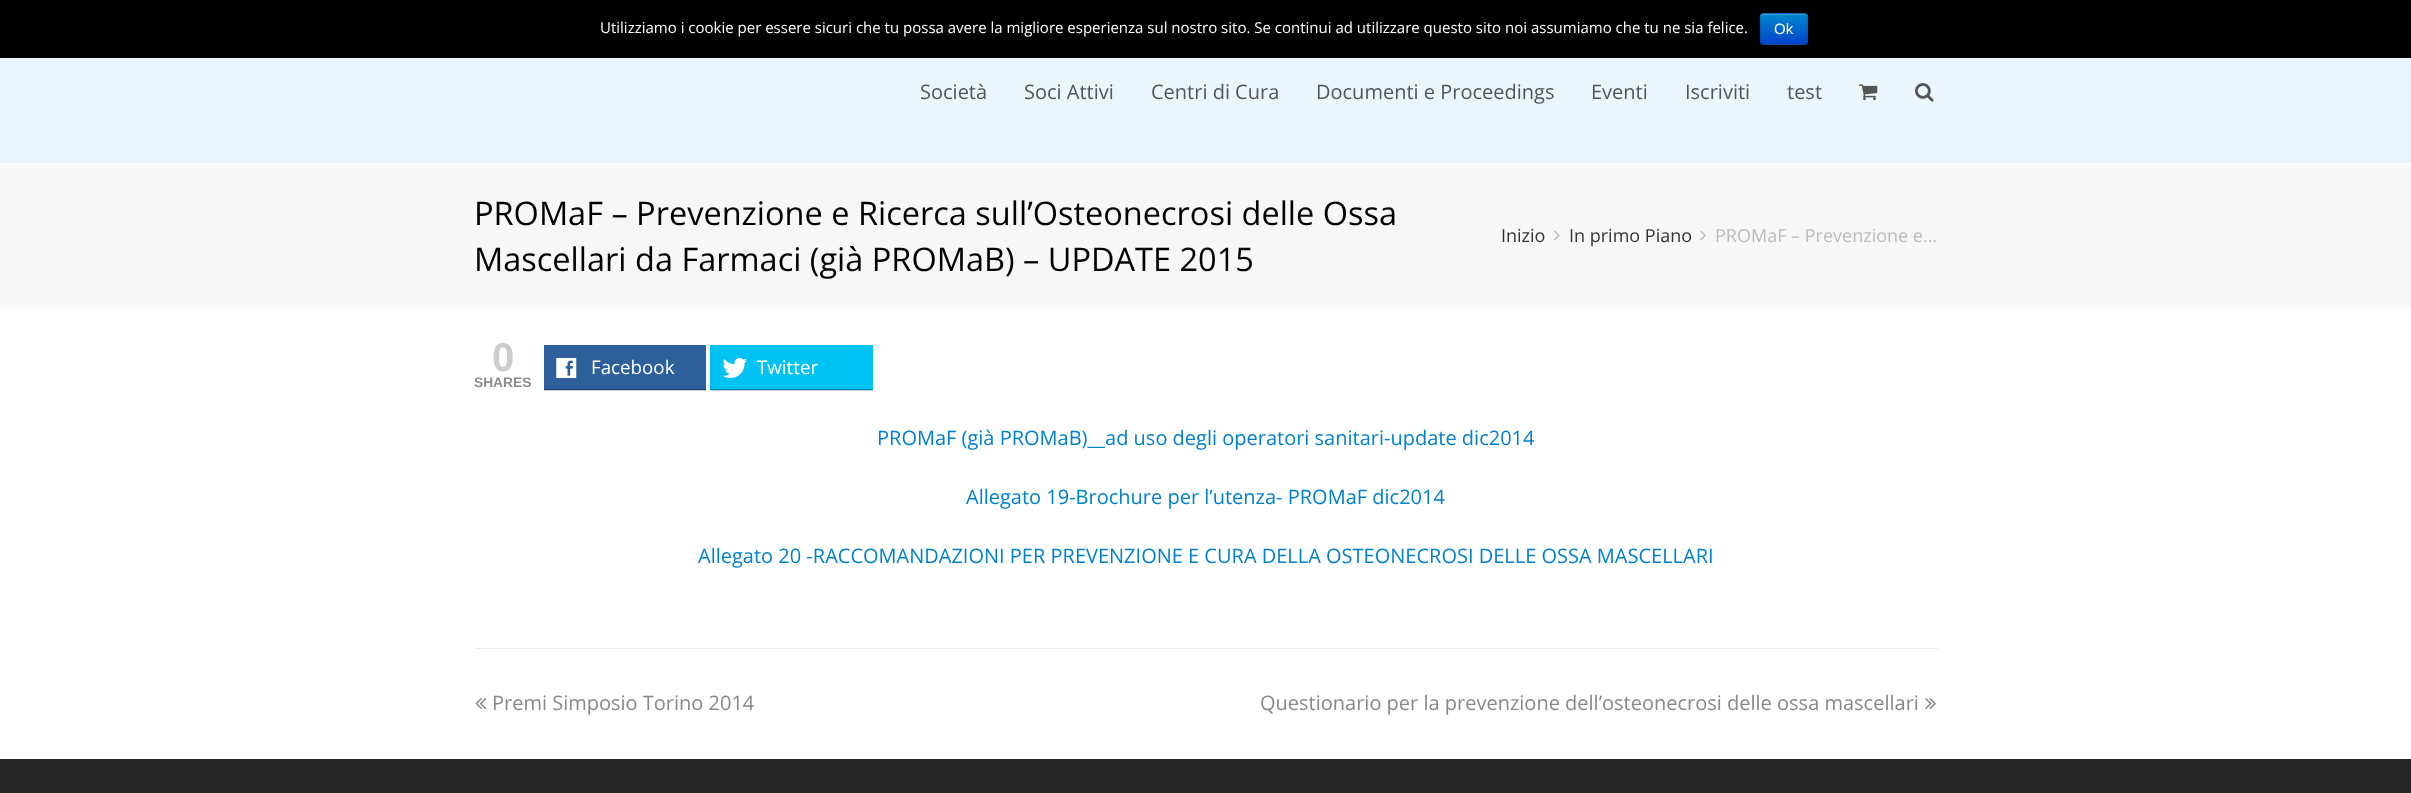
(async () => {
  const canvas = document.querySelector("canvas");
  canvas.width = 2411;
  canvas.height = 793;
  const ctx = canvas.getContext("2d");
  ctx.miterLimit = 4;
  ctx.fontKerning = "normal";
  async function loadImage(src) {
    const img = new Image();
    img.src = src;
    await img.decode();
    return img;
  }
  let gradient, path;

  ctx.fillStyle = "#ffffff";
  ctx.fillRect(0, 0, 2411, 793);
  ctx.fillStyle = "#000000";
  ctx.fillRect(0, 0, 2411, 58);
  ctx.fillStyle = "#006dcc";
  ctx.beginPath();
  ctx.roundRect(1760, 13, 48, 32, 4);
  ctx.fill();
  ctx.save();
  ctx.beginPath();
  ctx.roundRect(1760, 13, 48, 32, 4);
  ctx.clip();
  gradient = ctx.createLinearGradient(1784, 14, 1784, 44);
  gradient.addColorStop(0, "#0088cc");
  gradient.addColorStop(1, "#0044cc");
  ctx.fillStyle = gradient;
  ctx.fillRect(1760, 14, 48, 30);
  ctx.restore();
  ctx.fillStyle = "#339fd6";
  path = new Path2D("M1764 15H1804C1805 15 1806 16 1806 18C1806 12 1802 14 1797 14H1770C1765 14 1761 12 1761 18C1761 16 1762 15 1764 15Z");
  ctx.fill(path);
  path = new Path2D("M1806 43.5L1804 44.5H1764L1761.5 43.5");
  ctx.strokeStyle = "rgba(0, 0, 0, 0.25)";
  ctx.lineWidth = 1.2;
  ctx.stroke(path);
  path = new Path2D("M1761.5 43.5C1759.5 41.5 1760.5 31.5 1760.5 29C1760.5 14 1757 13 1770.5 13H1797C1810.5 13 1807 14 1807 29C1807 31.5 1808 41.5 1806 43.5");
  ctx.strokeStyle = "rgba(0, 0, 0, 0.1)";
  ctx.stroke(path);
  ctx.fillStyle = "#eaf5fc";
  ctx.fillRect(0, 58, 2411, 105);
  ctx.drawImage(await loadImage("img/1.png"), 1858, 84, 20, 17);
  ctx.drawImage(await loadImage("img/2.png"), 1915, 83, 19, 19);
  ctx.fillStyle = "#f7f7f7";
  ctx.fillRect(0, 166, 2411, 142);
  ctx.fillStyle = "#ffffff";
  ctx.fillRect(0, 306, 2411, 1);
  ctx.drawImage(await loadImage("img/3.png"), 1554, 230, 6, 11);
  ctx.drawImage(await loadImage("img/4.png"), 1700, 230, 6, 11);
  for (const [x, y, w, h, color] of [
    [544, 390, 162, 1, "#cccccc"],
    [544, 345, 162, 44, "#2d5f9a"],
    [544, 389, 162, 1, "#20436c"],
  ]) {
    ctx.fillStyle = color;
    ctx.fillRect(x, y, w, h);
  }
  ctx.drawImage(await loadImage("img/5.png"), 556, 358, 21, 20);
  ctx.fillStyle = "#cccccc";
  path = new Path2D("M710 390V391H873V346H872V390Z");
  ctx.fill(path);
  ctx.fillStyle = "#00c3f3";
  ctx.fillRect(710, 345, 163, 44);
  ctx.fillStyle = "#0089aa";
  ctx.fillRect(710, 389, 163, 1);
  ctx.drawImage(await loadImage("img/6.png"), 722, 358, 25, 20);
  ctx.fillStyle = "#eeeeee";
  ctx.fillRect(475, 648, 1463, 1);
  ctx.drawImage(await loadImage("img/7.png"), 475, 698, 12, 12);
  ctx.drawImage(await loadImage("img/8.png"), 1925, 698, 11, 12);
  ctx.fillStyle = "#262626";
  ctx.fillRect(0, 759, 2411, 34);
  ctx.font = "15px Open Sans";
  ctx.fillStyle = "#ffffff";
  ctx.fillText("Utilizziamo i cookie per essere sicuri che tu possa avere la migliore esperienza sul nostro sito. Se continui ad utilizzare questo sito noi assumiamo che tu ne sia felice.", 600, 33);
  ctx.font = "15px Liberation Sans";
  ctx.fillText("Ok", 1774, 34);
  ctx.font = "20px Open Sans";
  ctx.fillStyle = "#555555";
  for (const [text, x, y] of [
    ["Società", 920, 99],
    ["Soci Attivi", 1024, 99],
    ["Centri di Cura", 1151, 99],
    ["Documenti e Proceedings", 1316, 99],
    ["Eventi", 1591, 99],
    ["Iscriviti", 1685, 99],
    ["test", 1787, 99],
  ]) {
    ctx.fillText(text, x, y);
  }
  ctx.font = "32.5px Open Sans";
  ctx.fillStyle = "#000000";
  ctx.fillText("PROMaF – Prevenzione e Ricerca sull’Osteonecrosi delle Ossa", 474, 225);
  ctx.fillText("Mascellari da Farmaci (già PROMaB) – UPDATE 2015", 474, 271);
  ctx.font = "18px Open Sans";
  ctx.fillStyle = "#333333";
  ctx.fillText("Inizio", 1501, 242);
  ctx.fillText("In primo Piano", 1569, 242);
  ctx.fillStyle = "#bcbcbc";
  ctx.fillText("PROMaF – Prevenzione e…", 1715, 242);
  ctx.font = "bold 40px Liberation Sans";
  ctx.fillStyle = "#cccccc";
  ctx.fillText("0", 492, 371);
  ctx.font = "bold 13.75px Liberation Sans";
  ctx.fillStyle = "#8a8c8e";
  ctx.fillText("SHARES", 474, 387);
  ctx.font = "18.75px Open Sans";
  ctx.fillStyle = "#ffffff";
  ctx.fillText("Facebook", 591, 374);
  ctx.fillText("Twitter", 757, 374);
  ctx.font = "20px Open Sans";
  ctx.fillStyle = "#0081cc";
  for (const [text, x, y] of [
    ["PROMaF (già PROMaB)__ad uso degli operatori sanitari-update dic2014", 877, 445],
    ["Allegato 19-Brochure per l’utenza- PROMaF dic2014", 966, 504],
    ["Allegato 20 -RACCOMANDAZIONI PER PREVENZIONE E CURA DELLA OSTEONECROSI DELLE OSSA MASCELLARI", 698, 563],
  ]) {
    ctx.fillText(text, x, y);
  }
  ctx.fillStyle = "#888888";
  ctx.fillText("Premi Simposio Torino 2014", 492, 710);
  ctx.fillText("Questionario per la prevenzione dell’osteonecrosi delle ossa mascellari", 1260, 710);
})();
